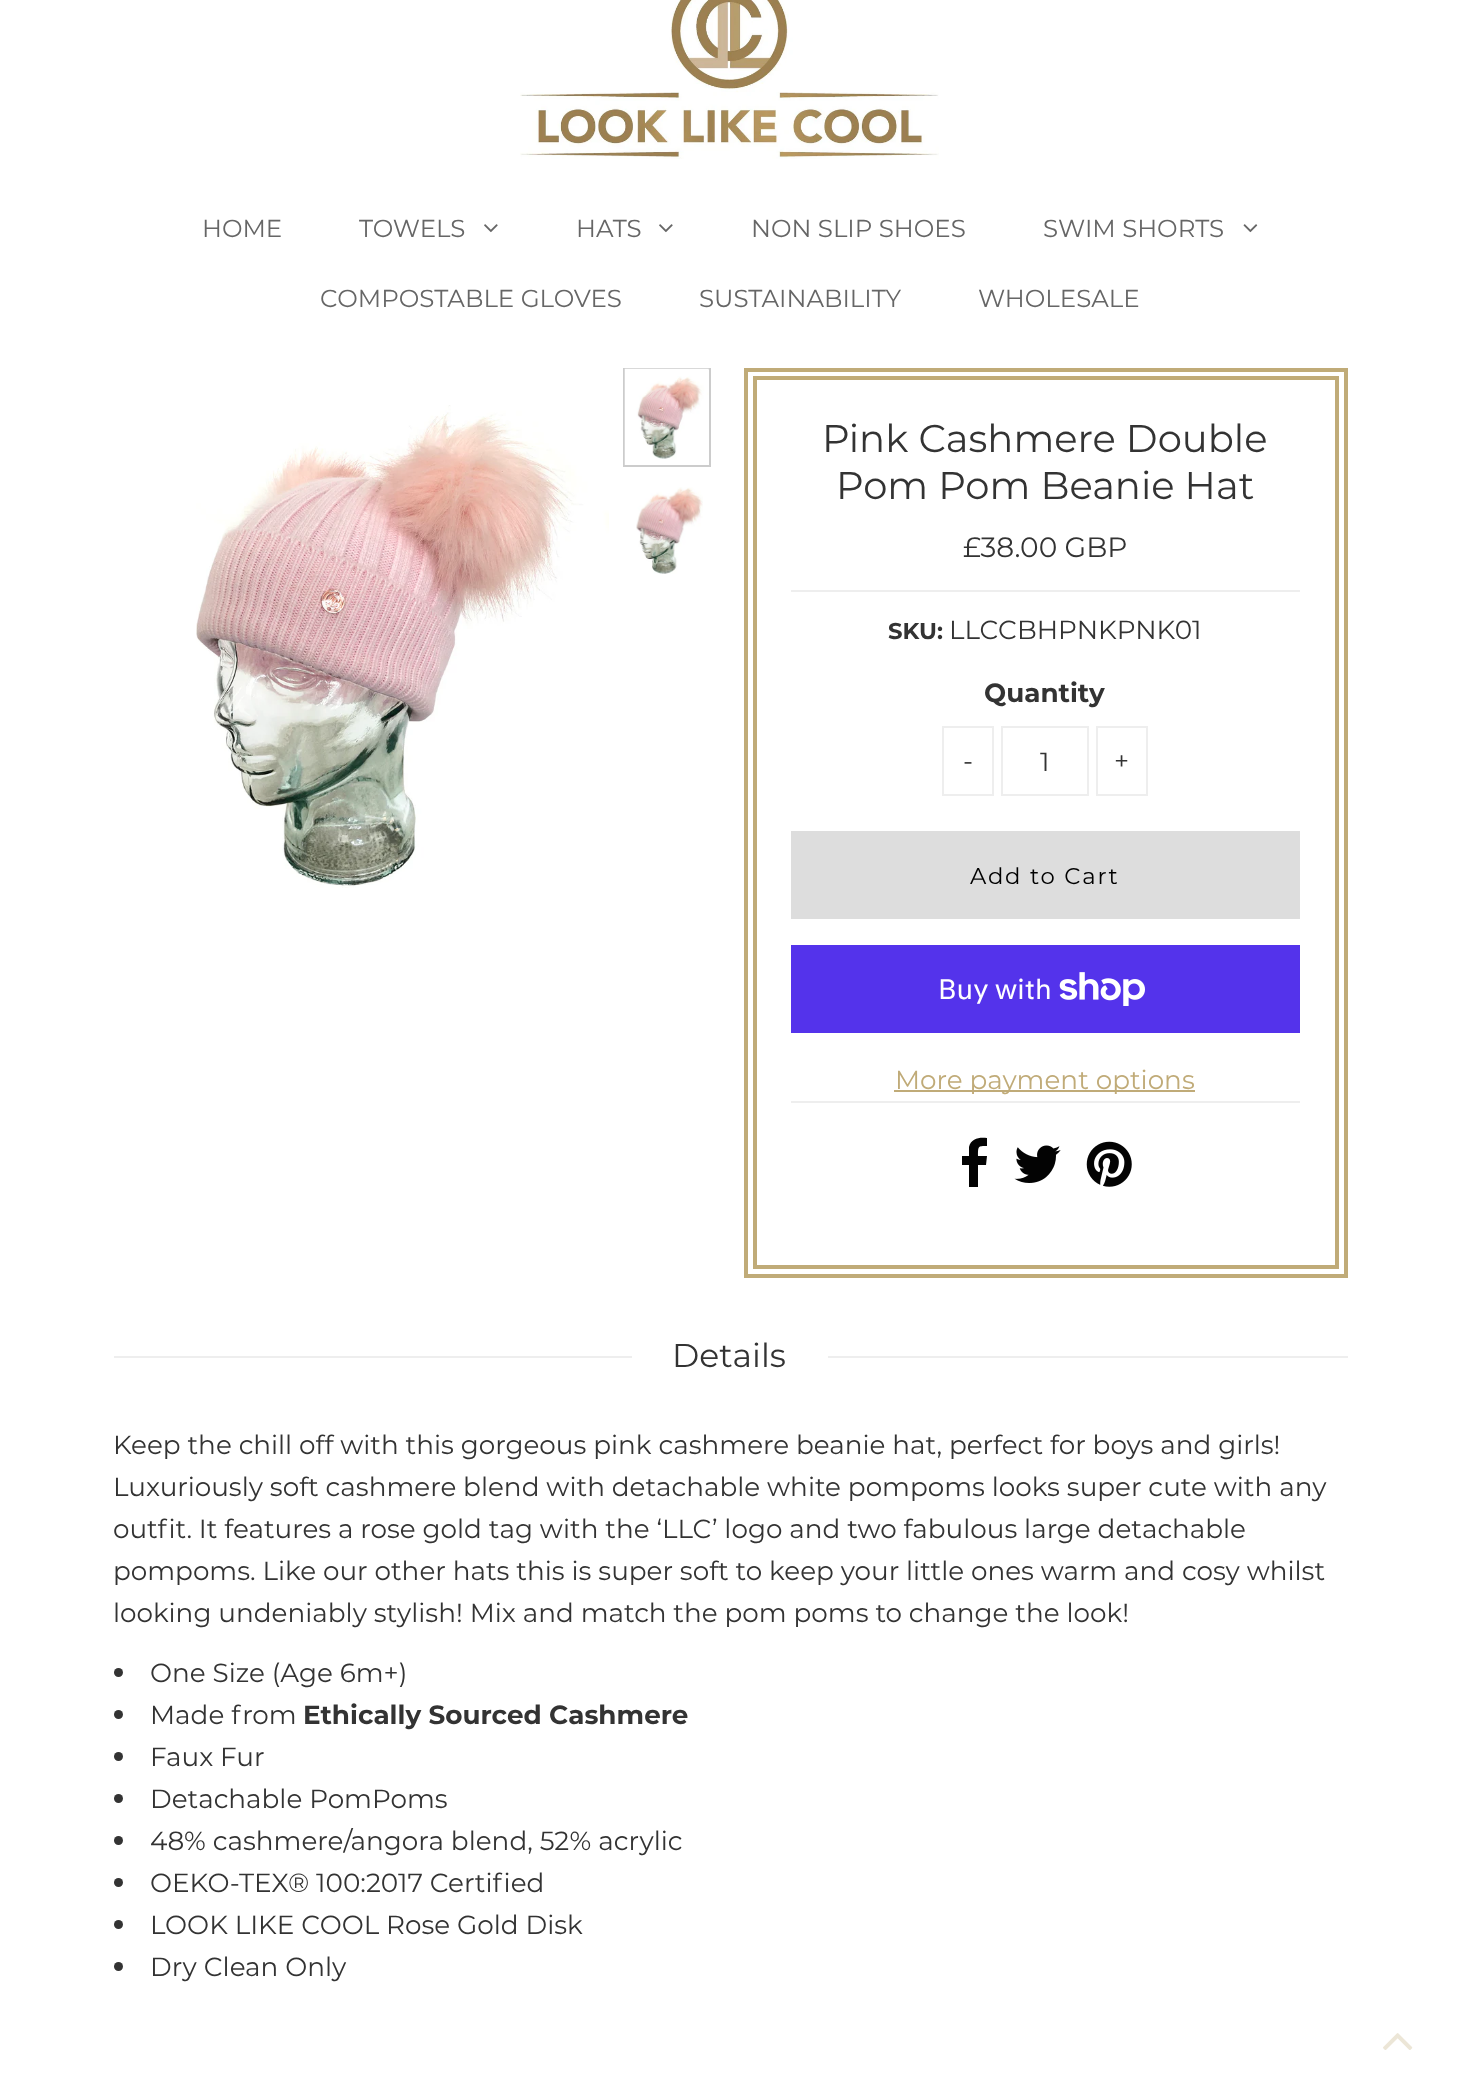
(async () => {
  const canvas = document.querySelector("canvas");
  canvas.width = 1458;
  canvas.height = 2099;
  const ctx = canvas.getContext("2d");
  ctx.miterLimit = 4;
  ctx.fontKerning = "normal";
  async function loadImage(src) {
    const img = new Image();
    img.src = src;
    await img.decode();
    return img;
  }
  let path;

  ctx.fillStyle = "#ffffff";
  ctx.fillRect(0, 0, 1458, 2099);
  ctx.drawImage(await loadImage("img/1.png"), 520, 0, 419, 159);
  ctx.drawImage(await loadImage("img/2.png"), 484, 224, 14, 9);
  ctx.drawImage(await loadImage("img/2.png"), 659, 224, 14, 9);
  ctx.drawImage(await loadImage("img/3.png"), 1243, 224, 15, 9);
  ctx.drawImage(await loadImage("img/4.png"), 196, 405, 413, 483);
  ctx.strokeStyle = "#cccccc";
  ctx.lineWidth = 2;
  ctx.strokeRect(624, 369, 86, 97);
  ctx.drawImage(await loadImage("img/5.png"), 624, 368, 85, 97);
  ctx.drawImage(await loadImage("img/6.png"), 636, 487, 67, 87);
  ctx.strokeStyle = "#c0ab78";
  ctx.lineWidth = 4;
  ctx.strokeRect(746, 370, 600, 906);
  ctx.strokeRect(755, 378, 582, 889);
  ctx.fillStyle = "#eeeeee";
  ctx.fillRect(791, 1101, 509, 2);
  ctx.fillRect(791, 590, 509, 2);
  ctx.strokeStyle = "#eeeeee";
  ctx.lineWidth = 2;
  ctx.strokeRect(943, 727, 50, 68);
  ctx.strokeRect(1002, 727, 86, 68);
  ctx.strokeRect(1097, 727, 50, 68);
  ctx.fillStyle = "#dddddd";
  ctx.fillRect(791, 831, 509, 88);
  ctx.fillStyle = "#5433eb";
  ctx.fillRect(791, 945, 509, 88);
  ctx.drawImage(await loadImage("img/7.png"), 1059, 972, 86, 34);
  ctx.fillStyle = "#c0ab78";
  ctx.fillRect(894, 1090, 301, 2);
  ctx.fillStyle = "#030303";
  path = new Path2D("M987 1138V1146C978 1146 978 1146 978 1156H987L986 1165H978V1187H969V1165H962V1156H969V1147C971 1138 980 1137 987 1138Z");
  ctx.fill(path);
  ctx.drawImage(await loadImage("img/8.png"), 1014, 1145, 47, 38);
  ctx.drawImage(await loadImage("img/9.png"), 1086, 1141, 46, 46);
  ctx.fillStyle = "#eeeeee";
  ctx.fillRect(114, 1356, 1234, 2);
  ctx.fillStyle = "#ffffff";
  ctx.fillRect(632, 1356, 196, 2);
  ctx.fillStyle = "#333333";
  ctx.beginPath();
  ctx.arc(118.5, 1672.5, 4.5, 0, Math.PI * 2);
  ctx.fill();
  ctx.beginPath();
  ctx.arc(118.5, 1714.5, 4.5, 0, Math.PI * 2);
  ctx.fill();
  ctx.beginPath();
  ctx.arc(118.5, 1756.5, 4.5, 0, Math.PI * 2);
  ctx.fill();
  ctx.beginPath();
  ctx.arc(118.5, 1798.5, 4.5, 0, Math.PI * 2);
  ctx.fill();
  ctx.beginPath();
  ctx.arc(118.5, 1840.5, 4.5, 0, Math.PI * 2);
  ctx.fill();
  ctx.beginPath();
  ctx.arc(118.5, 1882.5, 4.5, 0, Math.PI * 2);
  ctx.fill();
  ctx.beginPath();
  ctx.arc(118.5, 1924.5, 4.5, 0, Math.PI * 2);
  ctx.fill();
  ctx.beginPath();
  ctx.arc(118.5, 1966.5, 4.5, 0, Math.PI * 2);
  ctx.fill();
  ctx.drawImage(await loadImage("img/10.png"), 1383, 2033, 30, 17);
  ctx.font = "24.5px Montserrat";
  ctx.fillStyle = "#666666";
  for (const [text, x, y] of [
    ["HOME", 202, 237],
    ["TOWELS", 359, 237],
    ["HATS", 576, 237],
    ["NON SLIP SHOES", 751, 237],
    ["SWIM SHORTS", 1043, 237],
    ["COMPOSTABLE GLOVES", 320, 307],
    ["SUSTAINABILITY", 699, 307],
    ["WHOLESALE", 978, 307],
  ]) {
    ctx.fillText(text, x, y);
  }
  ctx.font = "38.5px Montserrat";
  ctx.fillStyle = "#333333";
  ctx.fillText("Pink Cashmere Double", 822, 452);
  ctx.fillText("Pom Pom Beanie Hat", 836, 499);
  ctx.font = "28px Montserrat";
  ctx.fillText("£38.00 GBP", 963, 557);
  ctx.font = "bold 22.75px Montserrat";
  ctx.fillText("SKU:", 888, 639);
  ctx.font = "26.25px Montserrat";
  ctx.fillText("LLCCBHPNKPNK01", 949, 639);
  ctx.font = "bold 26.25px Montserrat";
  ctx.fillText("Quantity", 984, 702);
  ctx.font = "26.25px Montserrat";
  for (const [text, x, y] of [
    ["-", 963, 770],
    ["1", 1040, 771],
    ["+", 1114, 770],
  ]) {
    ctx.fillText(text, x, y);
  }
  ctx.letterSpacing = "1.75px";
  ctx.font = "22.75px Montserrat";
  ctx.fillStyle = "#000000";
  ctx.fillText("Add to Cart", 970, 884);
  ctx.letterSpacing = "0px";
  ctx.font = "28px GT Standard";
  ctx.fillStyle = "#ffffff";
  ctx.fillText("Buy with", 938, 999);
  ctx.font = "26.25px Montserrat";
  ctx.fillStyle = "#c0ab78";
  ctx.fillText("More payment options", 895, 1089);
  ctx.font = "33px Montserrat";
  ctx.fillStyle = "#333333";
  ctx.fillText("Details", 672, 1367);
  ctx.font = "26.25px Montserrat";
  for (const [text, x, y] of [
    ["Keep the chill off with this gorgeous pink cashmere beanie hat, perfect for boys and girls!", 113, 1454],
    ["Luxuriously soft cashmere blend with detachable white pompoms looks super cute with any", 113, 1496],
    ["outfit. It features a rose gold tag with the ‘LLC’ logo and two fabulous large detachable", 113, 1538],
    ["pompoms. Like our other hats this is super soft to keep your little ones warm and cosy whilst", 113, 1580],
    ["looking undeniably stylish! Mix and match the pom poms to change the look!", 113, 1622],
    ["One Size (Age 6m+)", 150, 1682],
    ["Made from", 150, 1724],
  ]) {
    ctx.fillText(text, x, y);
  }
  ctx.font = "bold 26.25px Montserrat";
  ctx.fillText("Ethically Sourced Cashmere", 303, 1724);
  ctx.font = "26.25px Montserrat";
  for (const [text, x, y] of [
    ["Faux Fur", 150, 1766],
    ["Detachable PomPoms", 150, 1808],
    ["48% cashmere/angora blend, 52% acrylic", 150, 1850],
    ["OEKO-TEX® 100:2017 Certified", 150, 1892],
    ["LOOK LIKE COOL Rose Gold Disk", 150, 1934],
    ["Dry Clean Only", 150, 1976],
  ]) {
    ctx.fillText(text, x, y);
  }
})();
